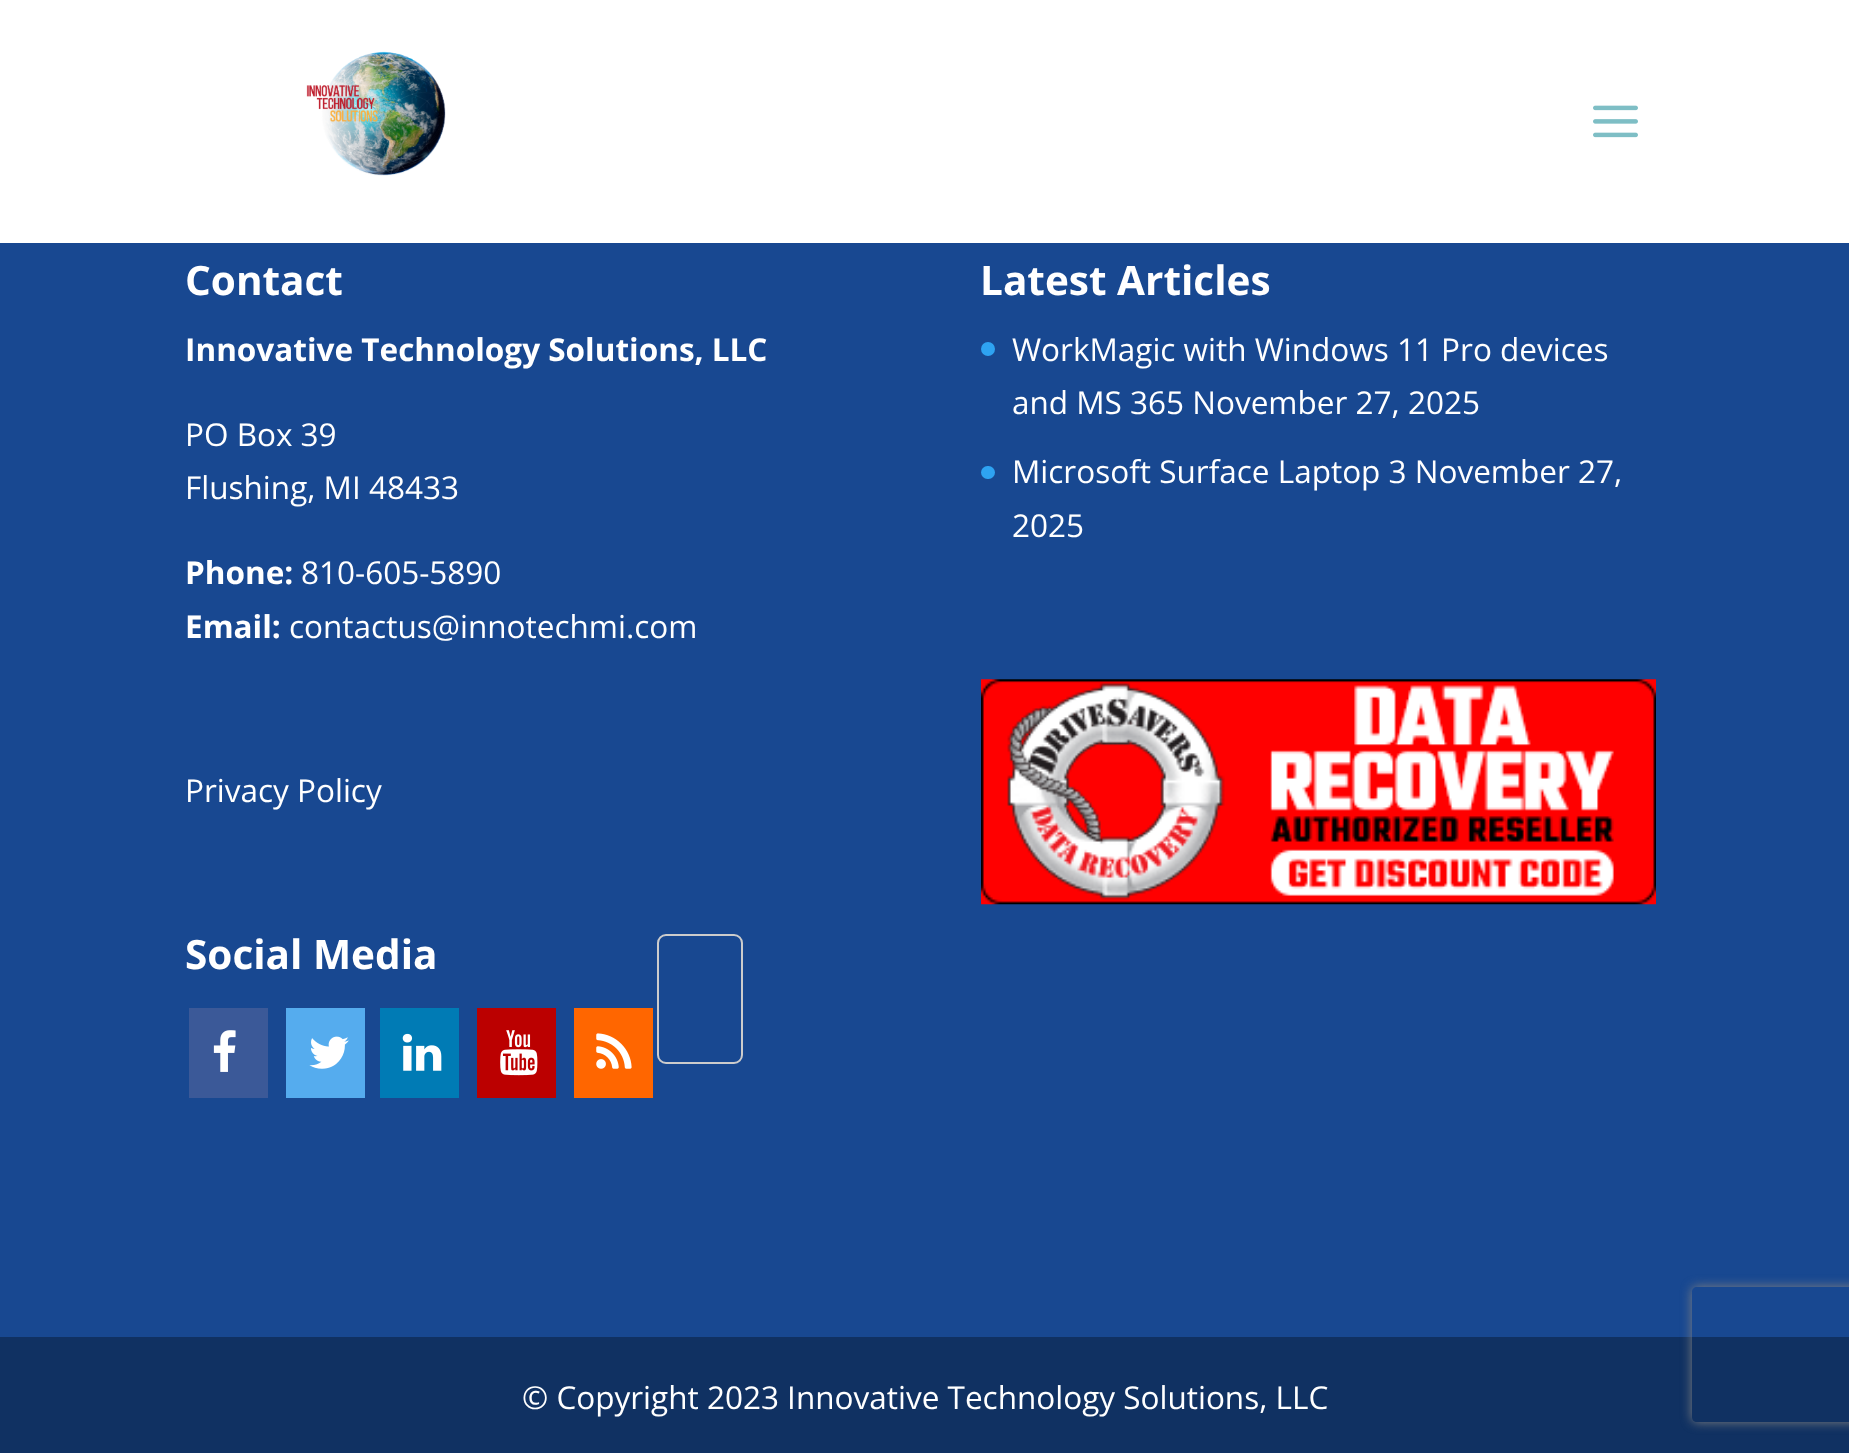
(async () => {
  const canvas = document.querySelector("canvas");
  canvas.width = 1849;
  canvas.height = 1453;
  const ctx = canvas.getContext("2d");
  ctx.miterLimit = 4;
  ctx.fontKerning = "normal";
  async function loadImage(src) {
    const img = new Image();
    img.src = src;
    await img.decode();
    return img;
  }
  let path;

  ctx.fillStyle = "#184891";
  ctx.fillRect(0, 0, 1849, 1453);
  ctx.fillStyle = "#ffffff";
  ctx.fillRect(0, 0, 1849, 243);
  ctx.drawImage(await loadImage("img/1.png"), 306, 51, 140, 125);
  ctx.drawImage(await loadImage("img/2.png"), 1593, 105, 45, 33);
  ctx.fillStyle = "#2ea3f2";
  ctx.beginPath();
  ctx.arc(988, 349, 7, 0, Math.PI * 2);
  ctx.fill();
  ctx.beginPath();
  ctx.roundRect(981, 466, 14, 13, 6.5);
  ctx.fill();
  ctx.drawImage(await loadImage("img/3.png"), 981, 679, 675, 226);
  ctx.fillStyle = "#3b5998";
  ctx.fillRect(189, 1008, 79, 90);
  ctx.drawImage(await loadImage("img/4.png"), 213, 1030, 23, 42);
  ctx.fillStyle = "#55acee";
  ctx.fillRect(286, 1008, 79, 90);
  ctx.drawImage(await loadImage("img/5.png"), 309, 1036, 40, 33);
  ctx.fillStyle = "#007bb5";
  ctx.fillRect(380, 1008, 79, 90);
  ctx.drawImage(await loadImage("img/6.png"), 402, 1033, 40, 38);
  ctx.fillStyle = "#bb0000";
  ctx.fillRect(477, 1008, 79, 90);
  ctx.drawImage(await loadImage("img/7.png"), 500, 1030, 38, 46);
  ctx.fillStyle = "#ff6600";
  ctx.fillRect(574, 1008, 79, 90);
  ctx.drawImage(await loadImage("img/8.png"), 596, 1033, 36, 36);
  ctx.beginPath();
  ctx.roundRect(658, 935, 84, 128, 8);
  ctx.strokeStyle = "#cccccc";
  ctx.lineWidth = 2;
  ctx.stroke();
  ctx.fillStyle = "#103162";
  ctx.fillRect(0, 1337, 1849, 116);
  ctx.save();
  path = new Path2D("M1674 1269H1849V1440H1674ZM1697 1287H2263C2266 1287 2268 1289 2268 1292V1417C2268 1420 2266 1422 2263 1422H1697C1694 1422 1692 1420 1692 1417V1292C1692 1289 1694 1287 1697 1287Z");
  ctx.clip(path, "evenodd");
  ctx.fillStyle = "#808080";
  ctx.filter = "blur(5.5px)";
  ctx.beginPath();
  ctx.roundRect(1692, 1287, 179, 135, 5);
  ctx.fill();
  ctx.filter = "none";
  ctx.restore();
  ctx.font = "bold 40.5px Open Sans";
  ctx.fillStyle = "#ffffff";
  ctx.fillText("Contact", 185, 295);
  ctx.font = "bold 31.5px Open Sans";
  ctx.fillText("Innovative Technology Solutions, LLC", 185, 361);
  ctx.font = "31.5px Open Sans";
  ctx.fillText("PO Box 39", 185, 446);
  ctx.fillText("Flushing, MI 48433", 185, 499);
  ctx.font = "bold 31.5px Open Sans";
  ctx.fillText("Phone:", 185, 584);
  ctx.font = "31.5px Open Sans";
  ctx.fillText("810-605-5890", 301, 584);
  ctx.font = "bold 31.5px Open Sans";
  ctx.fillText("Email:", 185, 638);
  ctx.font = "31.5px Open Sans";
  ctx.fillText("contactus@innotechmi.com", 289, 638);
  ctx.fillText("Privacy Policy", 185, 802);
  ctx.font = "bold 40.5px Open Sans";
  ctx.fillText("Latest Articles", 980, 295);
  ctx.font = "31.5px Open Sans";
  for (const [text, x, y] of [
    ["WorkMagic with Windows 11 Pro devices", 1012, 361],
    ["and MS 365 November 27, 2025", 1012, 414],
    ["Microsoft Surface Laptop 3 November 27,", 1012, 483],
    ["2025", 1012, 537],
  ]) {
    ctx.fillText(text, x, y);
  }
  ctx.font = "bold 40.5px Open Sans";
  ctx.fillText("Social Media", 185, 969);
  ctx.font = "31.5px Open Sans";
  ctx.fillText("© Copyright 2023 Innovative Technology Solutions, LLC", 522, 1409);
})();
